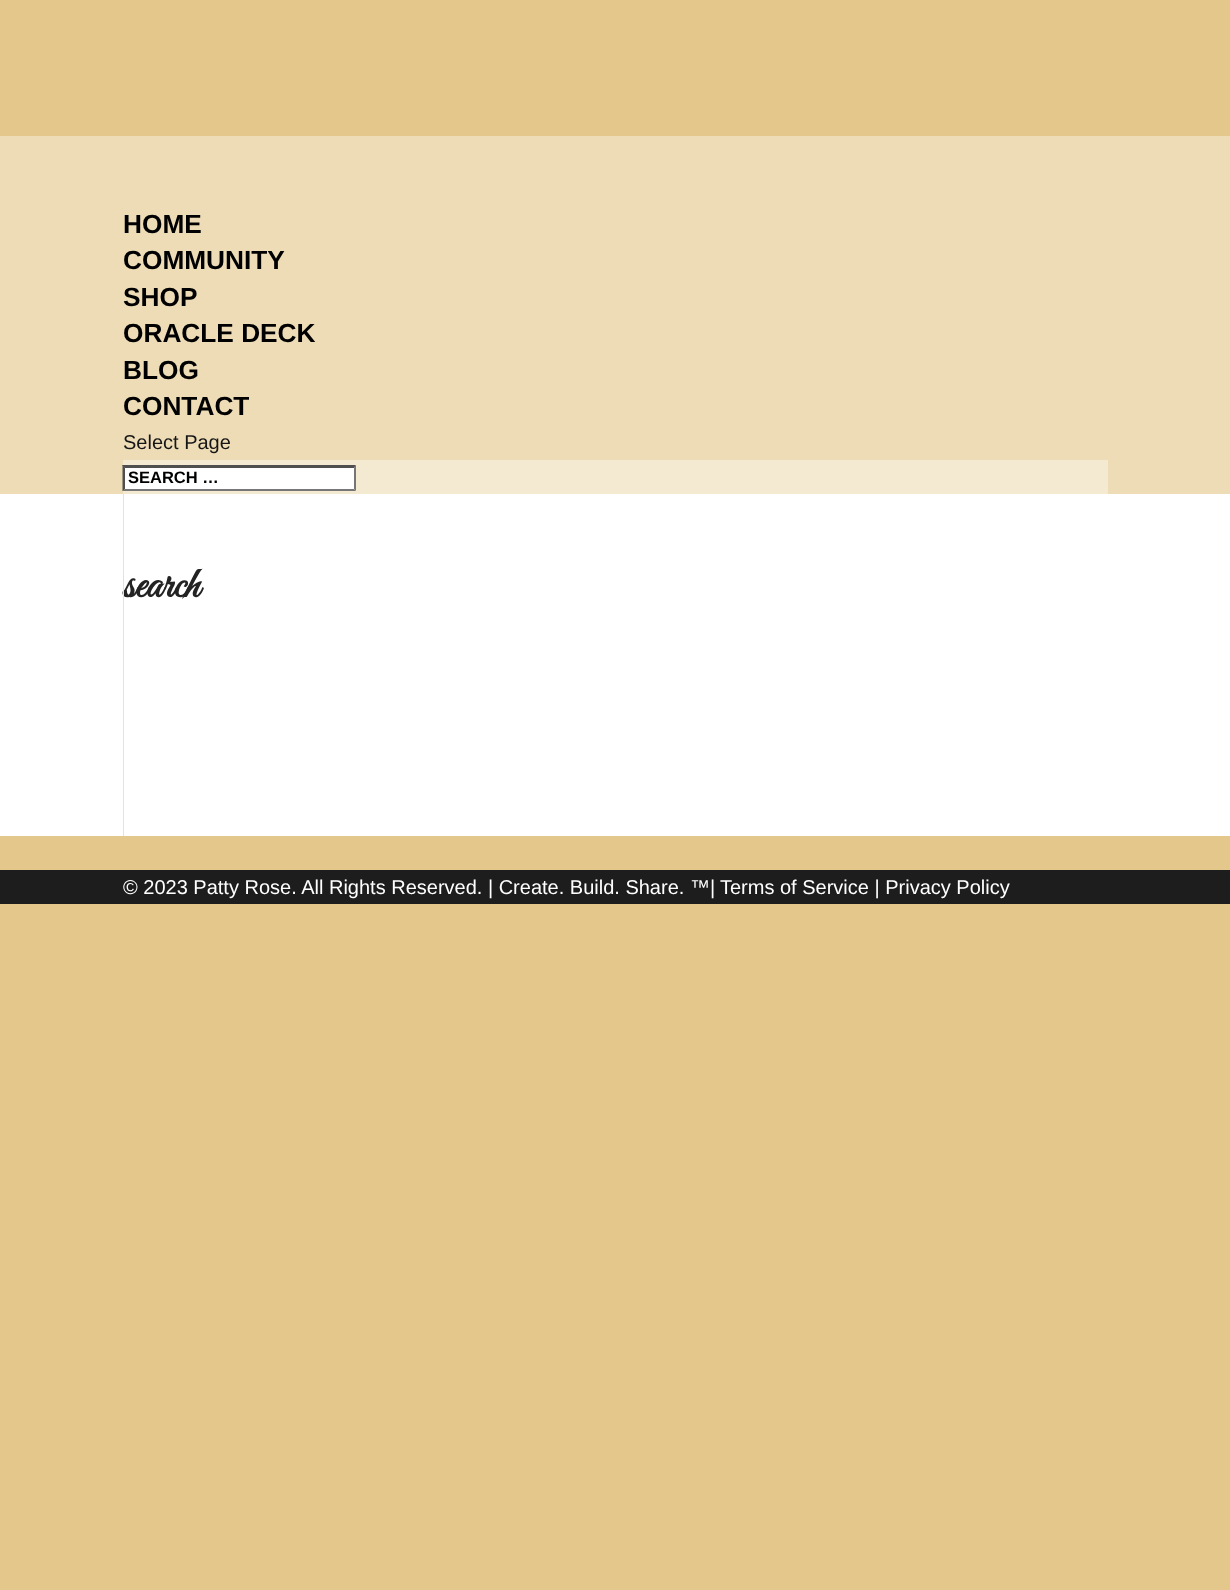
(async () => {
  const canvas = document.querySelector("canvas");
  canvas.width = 1230;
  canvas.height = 1590;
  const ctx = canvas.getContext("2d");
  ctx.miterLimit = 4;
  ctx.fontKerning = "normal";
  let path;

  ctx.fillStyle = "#e4c88b";
  ctx.fillRect(0, 0, 1230, 1590);
  for (const [x, y, w, h, color] of [
    [0, 136, 1230, 358, "#eddcb6"],
    [123, 460, 985, 34, "#f4e9d1"],
    [123, 465, 233, 26, "#ffffff"],
  ]) {
    ctx.fillStyle = color;
    ctx.fillRect(x, y, w, h);
  }
  ctx.fillStyle = "#4f4f4f";
  path = new Path2D("M122 465H356L354 468H125Z");
  ctx.fill(path);
  ctx.fillStyle = "#767676";
  path = new Path2D("M356 465V491L354 489V467.5Z");
  ctx.fill(path);
  path = new Path2D("M356 491H122L125 489H354Z");
  ctx.fill(path);
  ctx.fillStyle = "#4f4f4f";
  path = new Path2D("M122.5 491V465L125 467.5V489Z");
  ctx.fill(path);
  ctx.fillStyle = "#ffffff";
  ctx.fillRect(0, 494, 1230, 342);
  ctx.fillStyle = "#1d1d1d";
  ctx.fillRect(0, 870, 1230, 34);
  ctx.font = "bold 26.25px Liberation Sans";
  ctx.fillStyle = "#000000";
  for (const [text, x, y] of [
    ["HOME", 123, 233],
    ["COMMUNITY", 123, 269],
    ["SHOP", 123, 306],
    ["ORACLE DECK", 123, 342],
    ["BLOG", 123, 379],
    ["CONTACT", 123, 415],
  ]) {
    ctx.fillText(text, x, y);
  }
  ctx.font = "20px Liberation Sans";
  ctx.fillStyle = "#161616";
  ctx.fillText("Select Page", 123, 449);
  ctx.font = "bold 16.5px Liberation Sans";
  ctx.fillStyle = "#000000";
  ctx.fillText("SEARCH …", 128, 483);
  ctx.font = "bold 44px Great Vibes";
  ctx.fillStyle = "#232323";
  ctx.fillText("search", 123, 597);
  ctx.fillStyle = "#e2e2e2";
  ctx.fillRect(123, 494, 1, 342);
  ctx.font = "20px Liberation Sans";
  ctx.fillStyle = "#ffffff";
  ctx.fillText("© 2023 Patty Rose. All Rights Reserved. | Create. Build. Share. ™|", 123, 894);
  ctx.fillText("Terms of Service | Privacy Policy", 720, 894);
})();
